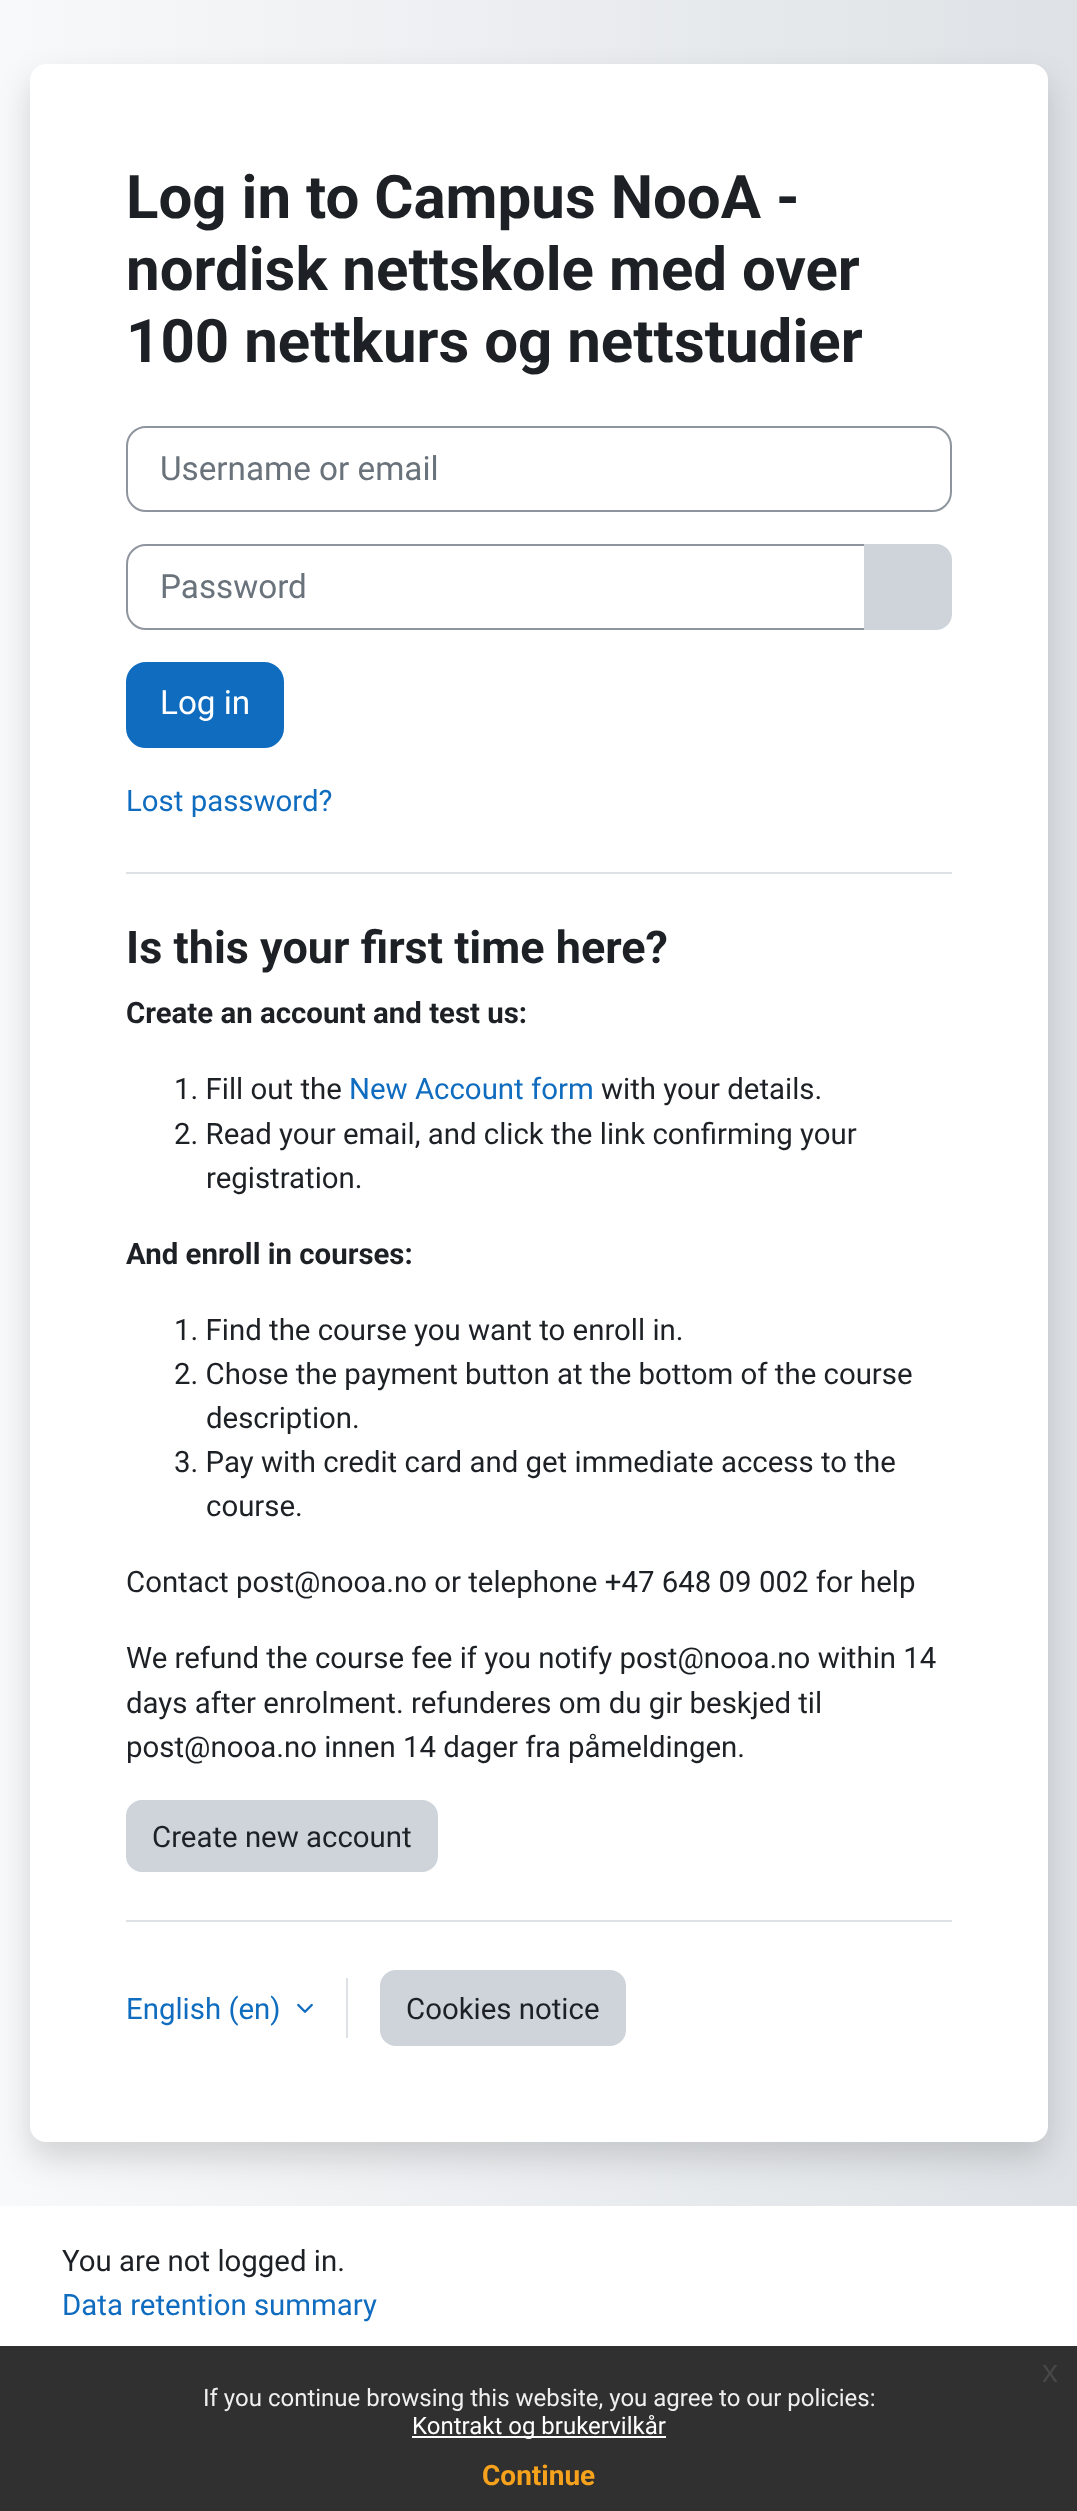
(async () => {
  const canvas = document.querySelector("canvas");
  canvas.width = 1077;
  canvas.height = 2511;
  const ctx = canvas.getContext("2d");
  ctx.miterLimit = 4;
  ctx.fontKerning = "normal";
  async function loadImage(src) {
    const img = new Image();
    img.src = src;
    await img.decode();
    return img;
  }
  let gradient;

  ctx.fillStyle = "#ffffff";
  ctx.fillRect(0, 0, 1077, 2511);
  gradient = ctx.createLinearGradient(0, 1103, 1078, 1103);
  gradient.addColorStop(0, "#f8f9fa");
  gradient.addColorStop(1, "#dee2e6");
  ctx.fillStyle = gradient;
  ctx.fillRect(0, 0, 1077, 2206);
  ctx.fillStyle = "rgba(0, 0, 0, 0.15)";
  ctx.filter = "blur(16px)";
  ctx.beginPath();
  ctx.roundRect(30, 80, 1018, 2078, 16);
  ctx.fill();
  ctx.filter = "none";
  ctx.fillStyle = "#ffffff";
  ctx.beginPath();
  ctx.roundRect(30, 64, 1018, 2078, 16);
  ctx.fill();
  ctx.beginPath();
  ctx.roundRect(127, 427, 824, 84, 19);
  ctx.strokeStyle = "#8f959e";
  ctx.lineWidth = 2;
  ctx.stroke();
  ctx.beginPath();
  ctx.roundRect(127, 545, 738, 84, [19, 0, 0, 19]);
  ctx.stroke();
  ctx.fillStyle = "#ced4da";
  ctx.beginPath();
  ctx.roundRect(865, 545, 86, 84, [0, 15, 15, 0]);
  ctx.fill();
  ctx.strokeStyle = "#ced4da";
  ctx.stroke();
  ctx.fillStyle = "#0f6cbf";
  ctx.beginPath();
  ctx.roundRect(127, 663, 156, 84, 19);
  ctx.fill();
  ctx.strokeStyle = "#0f6cbf";
  ctx.stroke();
  ctx.fillStyle = "#dee2e6";
  ctx.fillRect(126, 872, 826, 2);
  ctx.fillStyle = "#ced4da";
  ctx.beginPath();
  ctx.roundRect(127, 1801, 310, 70, 15);
  ctx.fill();
  ctx.strokeStyle = "#ced4da";
  ctx.stroke();
  ctx.fillStyle = "#dee2e6";
  ctx.fillRect(126, 1920, 826, 2);
  ctx.drawImage(await loadImage("img/1.png"), 297, 2003, 16, 10);
  ctx.fillRect(346, 1978, 2, 60);
  ctx.fillStyle = "#ced4da";
  ctx.beginPath();
  ctx.roundRect(381, 1971, 244, 74, 15);
  ctx.fill();
  ctx.stroke();
  ctx.fillStyle = "rgba(25, 25, 25, 0.9)";
  ctx.fillRect(0, 2346, 1077, 165);
  ctx.fillStyle = "#ffffff";
  ctx.fillRect(412, 2436, 254, 2);
  ctx.font = "bold 60px Roboto";
  ctx.fillStyle = "#1d2125";
  for (const [text, x, y] of [
    ["Log in to Campus NooA -", 126, 218],
    ["nordisk nettskole med over", 126, 290],
    ["100 nettkurs og nettstudier", 126, 362],
  ]) {
    ctx.fillText(text, x, y);
  }
  ctx.font = "33.25px Roboto";
  ctx.fillStyle = "#6a737b";
  ctx.fillText("Username or email", 160, 480);
  ctx.fillText("Password", 160, 598);
  ctx.fillStyle = "#ffffff";
  ctx.fillText("Log in", 160, 714);
  ctx.font = "29.4px Roboto";
  ctx.fillStyle = "#0f6cbf";
  ctx.fillText("Lost password?", 126, 811);
  ctx.font = "bold 45px Roboto";
  ctx.fillStyle = "#1d2125";
  ctx.fillText("Is this your first time here?", 126, 963);
  ctx.font = "bold 29.4px Roboto";
  ctx.fillText("Create an account and test us:", 126, 1023);
  ctx.font = "29.4px Roboto";
  ctx.fillText("1. Fill out the", 174, 1099);
  ctx.fillStyle = "#0f6cbf";
  ctx.fillText("New Account form", 349, 1099);
  ctx.fillStyle = "#1d2125";
  for (const [text, x, y] of [
    ["with your details.", 601, 1099],
    ["2. Read your email, and click the link confirming your", 174, 1144],
    ["registration.", 206, 1188],
  ]) {
    ctx.fillText(text, x, y);
  }
  ctx.font = "bold 29.4px Roboto";
  ctx.fillText("And enroll in courses:", 126, 1264);
  ctx.font = "29.4px Roboto";
  for (const [text, x, y] of [
    ["1. Find the course you want to enroll in.", 174, 1340],
    ["2. Chose the payment button at the bottom of the course", 174, 1384],
    ["description.", 206, 1428],
    ["3. Pay with credit card and get immediate access to the", 174, 1472],
    ["course.", 206, 1516],
    ["Contact post@nooa.no or telephone +47 648 09 002 for help", 126, 1592],
    ["We refund the course fee if you notify post@nooa.no within 14", 126, 1668],
    ["days after enrolment. refunderes om du gir beskjed til", 126, 1713],
    ["post@nooa.no innen 14 dager fra påmeldingen.", 126, 1757],
    ["Create new account", 152, 1847],
  ]) {
    ctx.fillText(text, x, y);
  }
  ctx.fillStyle = "#0f6cbf";
  ctx.fillText("English (en)", 126, 2019);
  ctx.fillStyle = "#1d2125";
  ctx.fillText("Cookies notice", 406, 2019);
  ctx.fillText("You are not logged in.", 62, 2271);
  ctx.fillStyle = "#0f6cbf";
  ctx.fillText("Data retention summary", 62, 2315);
  ctx.font = "32px Liberation Sans";
  ctx.fillStyle = "#474747";
  ctx.fillText("x", 1042, 2382);
  ctx.font = "24px Roboto";
  ctx.fillStyle = "#efefef";
  ctx.fillText("If you continue browsing this website, you agree to our policies:", 203, 2406);
  ctx.fillStyle = "#ffffff";
  ctx.fillText("Kontrakt og brukervilkår", 412, 2434);
  ctx.font = "bold 28px Roboto";
  ctx.fillStyle = "#f6a21d";
  ctx.fillText("Continue", 482, 2485);
})();
